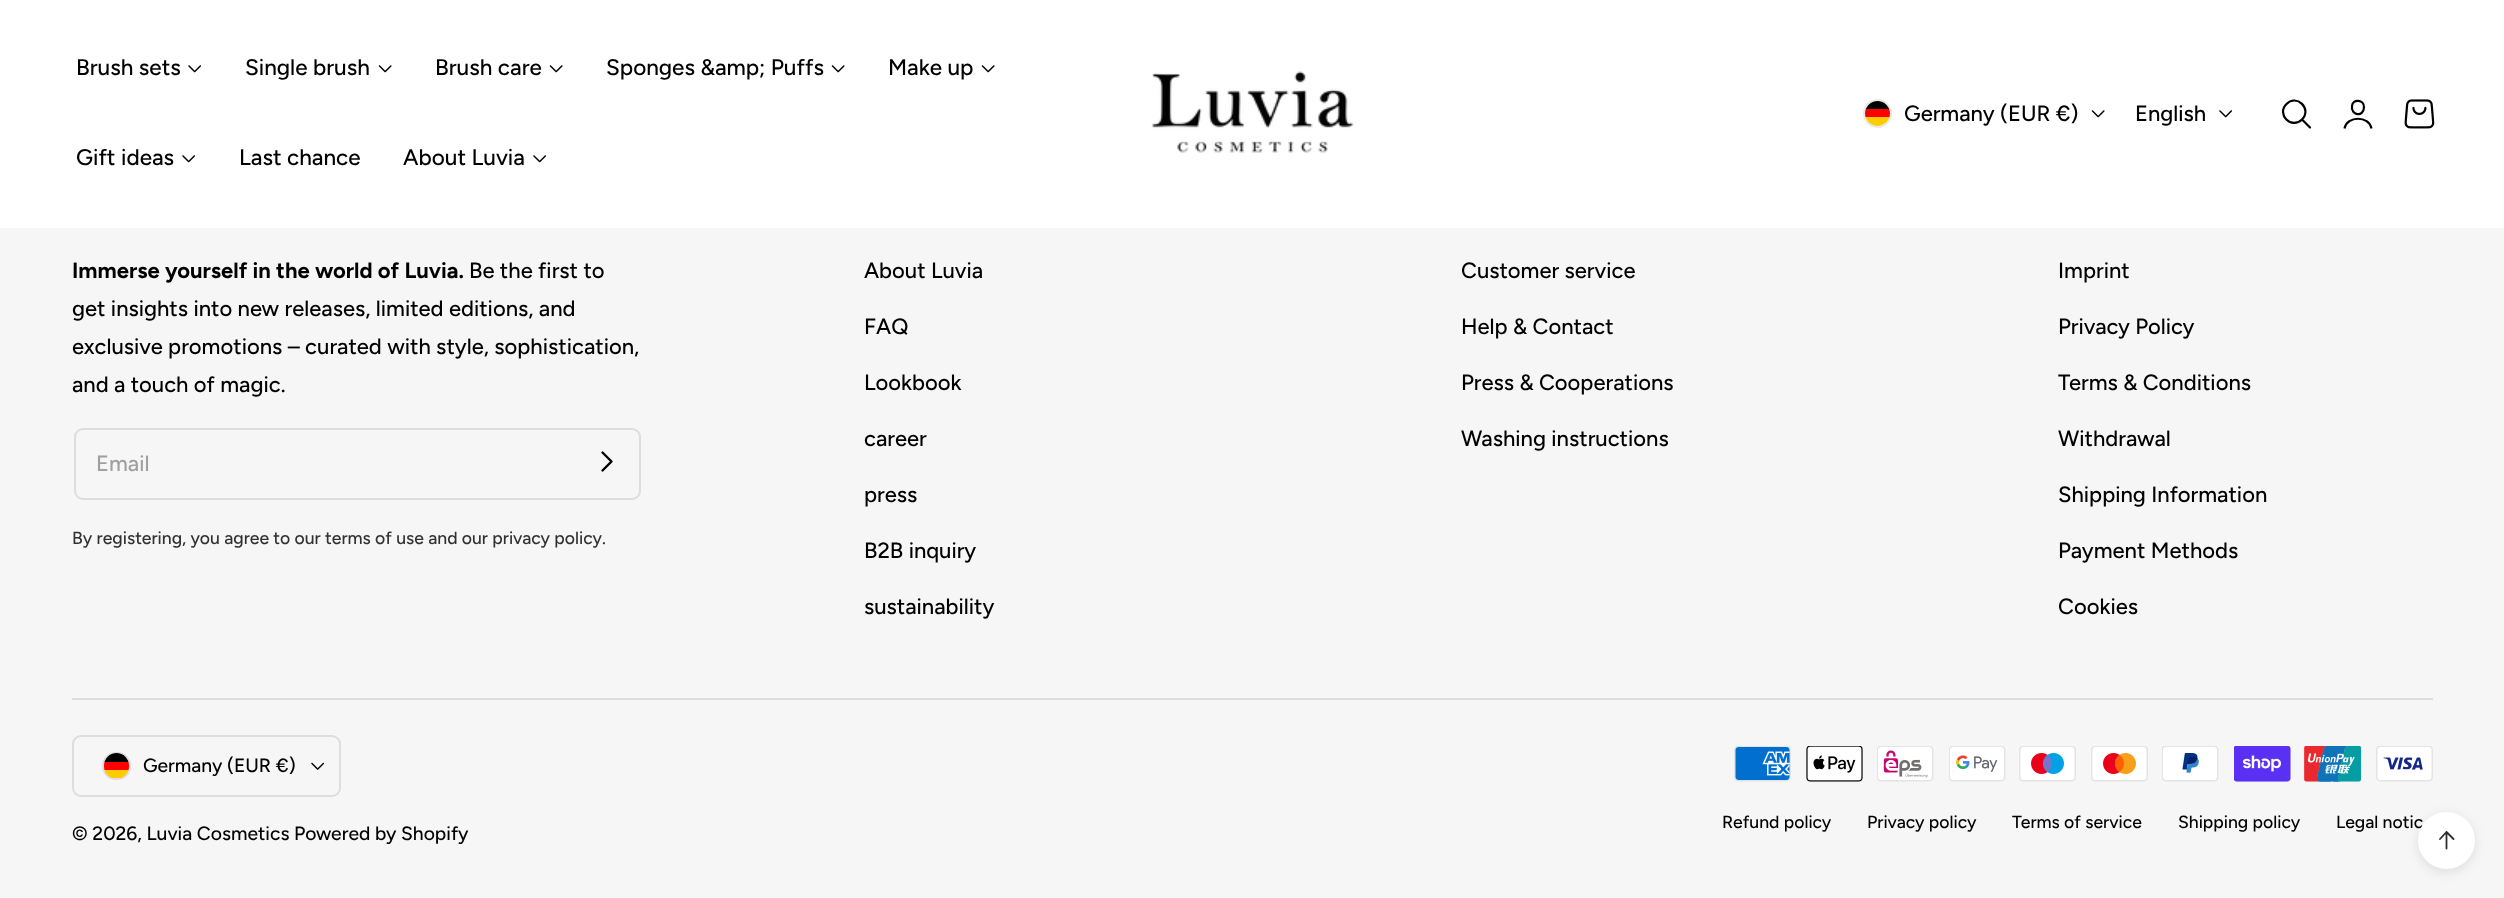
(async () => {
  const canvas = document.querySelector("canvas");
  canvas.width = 2504;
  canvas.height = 898;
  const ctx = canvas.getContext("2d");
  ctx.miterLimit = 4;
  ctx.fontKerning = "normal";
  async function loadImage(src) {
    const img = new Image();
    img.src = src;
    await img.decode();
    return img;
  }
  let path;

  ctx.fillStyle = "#f6f6f6";
  ctx.fillRect(0, 0, 2504, 898);
  ctx.fillStyle = "#ffffff";
  ctx.fillRect(0, 0, 2504, 228);
  ctx.drawImage(await loadImage("img/1.png"), 188, 65, 13, 8);
  ctx.drawImage(await loadImage("img/2.png"), 378, 65, 14, 8);
  ctx.drawImage(await loadImage("img/2.png"), 549, 65, 14, 8);
  ctx.drawImage(await loadImage("img/2.png"), 831, 65, 14, 8);
  ctx.drawImage(await loadImage("img/2.png"), 981, 65, 14, 8);
  ctx.drawImage(await loadImage("img/1.png"), 182, 155, 13, 8);
  ctx.drawImage(await loadImage("img/1.png"), 533, 155, 13, 8);
  ctx.drawImage(await loadImage("img/3.png"), 1151, 71, 203, 82);
  ctx.beginPath();
  ctx.arc(1877.5, 113.5, 13.5, 0, Math.PI * 2);
  ctx.strokeStyle = "#eaeaea";
  ctx.lineWidth = 2;
  ctx.stroke();
  ctx.save();
  ctx.beginPath();
  ctx.roundRect(1865, 101, 25, 25, 12.5);
  ctx.clip();
  for (const [x, y, w, h, color] of [
    [1865, 117, 25, 9, "#ffcc00"],
    [1865, 101, 25, 8, "#000000"],
    [1865, 109, 25, 8, "#ff0000"],
  ]) {
    ctx.fillStyle = color;
    ctx.fillRect(x, y, w, h);
  }
  ctx.restore();
  ctx.drawImage(await loadImage("img/4.png"), 2091, 110, 14, 8);
  ctx.drawImage(await loadImage("img/5.png"), 2219, 110, 13, 8);
  path = new Path2D("M2310 127.5L2302 119.5M2302 119.5C2312.5 109 2296.5 93.5 2286.5 104C2276 114 2291.5 130 2302 119.5Z");
  ctx.strokeStyle = "#000000";
  ctx.lineWidth = 2.2;
  ctx.lineCap = "round";
  ctx.lineJoin = "round";
  ctx.stroke(path);
  path = new Path2D("M2364 107.5C2363.5 117.5 2350.5 115.5 2352 106C2352.5 98.5 2364.5 99.5 2364 107.5Z");
  ctx.stroke(path);
  path = new Path2D("M2344.5 128.5C2347 115.5 2369 115.5 2371.5 128.5");
  ctx.lineCap = "butt";
  ctx.lineJoin = "miter";
  ctx.stroke(path);
  ctx.drawImage(await loadImage("img/6.png"), 2404, 99, 31, 30);
  ctx.beginPath();
  ctx.roundRect(75, 429, 565, 70, 8);
  ctx.strokeStyle = "#dddddd";
  ctx.lineWidth = 2;
  ctx.stroke();
  path = new Path2D("M602.5 452.5L611.5 461.5L602.5 470.5");
  ctx.strokeStyle = "#000000";
  ctx.lineWidth = 2.4;
  ctx.lineCap = "round";
  ctx.lineJoin = "round";
  ctx.stroke(path);
  ctx.fillStyle = "#dddddd";
  ctx.fillRect(72, 698, 2361, 2);
  ctx.beginPath();
  ctx.roundRect(73, 736, 267, 60, 8);
  ctx.strokeStyle = "#dddddd";
  ctx.lineWidth = 2;
  ctx.lineJoin = "miter";
  ctx.stroke();
  ctx.beginPath();
  ctx.roundRect(103, 753, 27, 26, 13);
  ctx.stroke();
  ctx.save();
  ctx.beginPath();
  ctx.roundRect(104, 753, 25, 26, 12.5);
  ctx.clip();
  for (const [x, y, w, h, color] of [
    [104, 770, 25, 8, "#ffcc00"],
    [104, 753, 25, 9, "#000000"],
    [104, 762, 25, 8, "#ff0000"],
  ]) {
    ctx.fillStyle = color;
    ctx.fillRect(x, y, w, h);
  }
  ctx.restore();
  ctx.drawImage(await loadImage("img/7.png"), 311, 762, 13, 8);
  ctx.drawImage(await loadImage("img/8.png"), 1734, 746, 57, 36);
  ctx.drawImage(await loadImage("img/9.png"), 1806, 746, 57, 36);
  ctx.drawImage(await loadImage("img/10.png"), 1877, 746, 57, 36);
  ctx.drawImage(await loadImage("img/11.png"), 1949, 746, 57, 36);
  ctx.drawImage(await loadImage("img/12.png"), 2019, 746, 57, 36);
  ctx.drawImage(await loadImage("img/13.png"), 2091, 746, 57, 36);
  ctx.drawImage(await loadImage("img/14.png"), 2162, 746, 57, 36);
  ctx.drawImage(await loadImage("img/15.png"), 2234, 746, 57, 36);
  ctx.drawImage(await loadImage("img/16.png"), 2304, 746, 57, 36);
  ctx.drawImage(await loadImage("img/17.png"), 2376, 746, 57, 36);
  ctx.fillStyle = "rgba(0, 0, 0, 0.1)";
  ctx.filter = "blur(6px)";
  ctx.beginPath();
  ctx.roundRect(2418, 815, 57, 57, 28.5);
  ctx.fill();
  ctx.filter = "none";
  ctx.font = "500 22.5px Figtree";
  ctx.fillStyle = "#000000";
  for (const [text, x, y] of [
    ["Brush sets", 76, 75],
    ["Single brush", 245, 75],
    ["Brush care", 435, 75],
    ["Sponges &amp; Puffs", 606, 75],
    ["Make up", 888, 75],
    ["Gift ideas", 76, 165],
    ["Last chance", 239, 165],
    ["About Luvia", 403, 165],
  ]) {
    ctx.fillText(text, x, y);
  }
  ctx.font = "500 22px Figtree";
  ctx.fillText("Germany (EUR €)", 1904, 121);
  ctx.fillText("English", 2135, 121);
  ctx.font = "bold 22px Figtree";
  ctx.fillText("Immerse yourself in the world of Luvia.", 72, 278);
  ctx.font = "500 22px Figtree";
  for (const [text, x, y] of [
    ["Be the first to", 469, 278],
    ["get insights into new releases, limited editions, and", 72, 316],
    ["exclusive promotions – curated with style, sophistication,", 72, 354],
    ["and a touch of magic.", 72, 392],
  ]) {
    ctx.fillText(text, x, y);
  }
  ctx.fillStyle = "#a0a0a0";
  ctx.fillText("Email", 96, 471);
  ctx.font = "500 17.6px Figtree";
  ctx.fillStyle = "#313131";
  ctx.fillText("By registering, you agree to our terms of use and our privacy policy.", 72, 544);
  ctx.font = "500 22px Figtree";
  ctx.fillStyle = "#000000";
  for (const [text, x, y] of [
    ["About Luvia", 864, 278],
    ["FAQ", 864, 334],
    ["Lookbook", 864, 390],
    ["career", 864, 446],
    ["press", 864, 502],
    ["B2B inquiry", 864, 558],
    ["sustainability", 864, 614],
    ["Customer service", 1461, 278],
    ["Help & Contact", 1461, 334],
    ["Press & Cooperations", 1461, 390],
    ["Washing instructions", 1461, 446],
    ["Imprint", 2058, 278],
    ["Privacy Policy", 2058, 334],
    ["Terms & Conditions", 2058, 390],
    ["Withdrawal", 2058, 446],
    ["Shipping Information", 2058, 502],
    ["Payment Methods", 2058, 558],
    ["Cookies", 2058, 614],
  ]) {
    ctx.fillText(text, x, y);
  }
  ctx.font = "500 19.25px Figtree";
  ctx.fillText("Germany (EUR €)", 143, 772);
  ctx.fillText("© 2026, Luvia Cosmetics Powered by Shopify", 72, 840);
  ctx.font = "500 17.6px Figtree";
  for (const [text, x, y] of [
    ["Refund policy", 1722, 828],
    ["Privacy policy", 1867, 828],
    ["Terms of service", 2012, 828],
    ["Shipping policy", 2178, 828],
    ["Legal notic", 2336, 828],
  ]) {
    ctx.fillText(text, x, y);
  }
  ctx.fillStyle = "#ffffff";
  ctx.beginPath();
  ctx.arc(2446.5, 840.5, 28.5, 0, Math.PI * 2);
  ctx.fill();
  path = new Path2D("M2440 839L2446.5 832M2446.5 832L2453.5 839M2446.5 832V848.5");
  ctx.strokeStyle = "#2c2d2e";
  ctx.lineWidth = 1.8;
  ctx.lineJoin = "round";
  ctx.stroke(path);
})();
